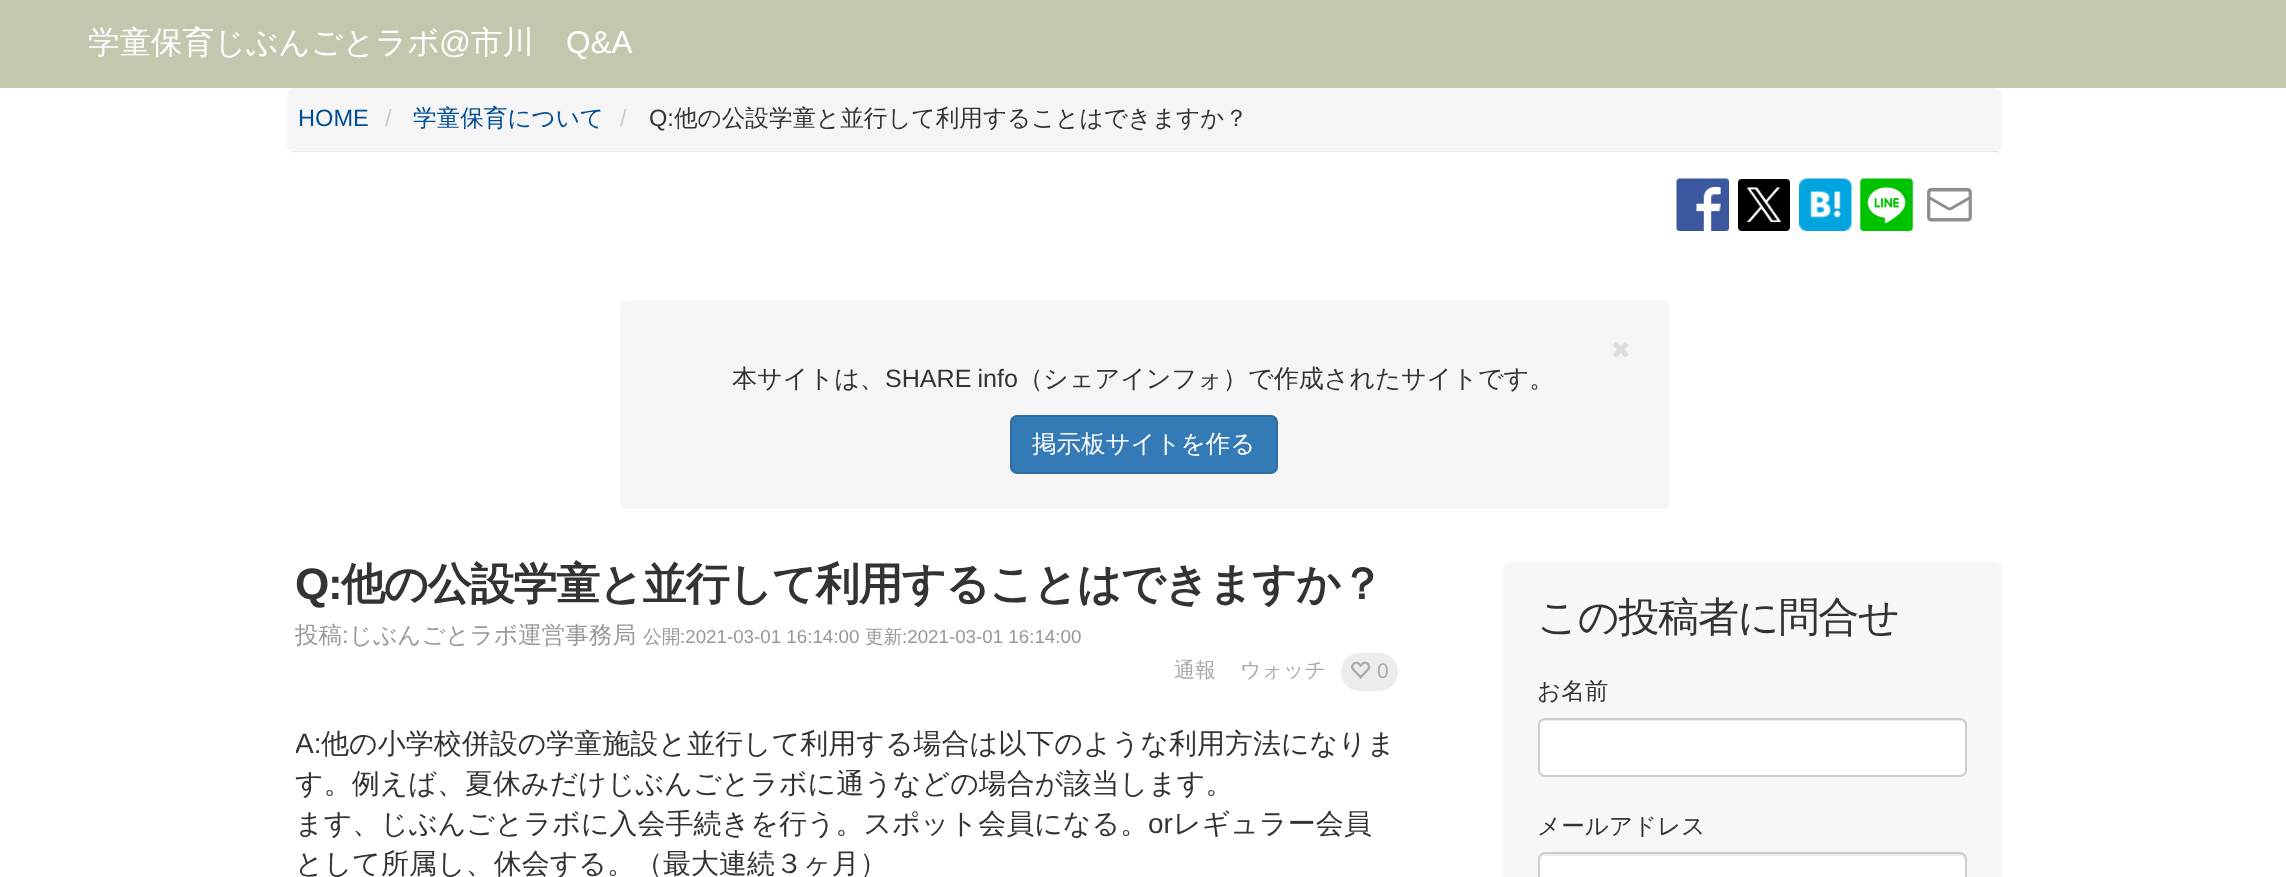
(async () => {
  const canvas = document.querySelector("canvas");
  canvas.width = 2286;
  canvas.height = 877;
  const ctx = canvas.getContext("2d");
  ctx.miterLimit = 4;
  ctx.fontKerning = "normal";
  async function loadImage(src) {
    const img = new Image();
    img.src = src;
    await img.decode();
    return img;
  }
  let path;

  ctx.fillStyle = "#ffffff";
  ctx.fillRect(0, 0, 2286, 877);
  ctx.fillStyle = "#c4c6ae";
  ctx.fillRect(0, 0, 2286, 88);
  ctx.fillStyle = "#f5f5f5";
  ctx.beginPath();
  ctx.roundRect(287, 88, 1715, 64, 7);
  ctx.fill();
  ctx.fillStyle = "#eaeaea";
  ctx.fillRect(291, 151, 1708, 2);
  ctx.fillStyle = "#ffffff";
  ctx.beginPath();
  ctx.roundRect(287, 152, 1715, 97, 7);
  ctx.fill();
  ctx.drawImage(await loadImage("img/1.png"), 1676, 178, 53, 53);
  ctx.fillStyle = "#000000";
  ctx.beginPath();
  ctx.roundRect(1738, 179, 52, 52, 4);
  ctx.fill();
  ctx.drawImage(await loadImage("img/2.png"), 1799, 178, 53, 53);
  ctx.drawImage(await loadImage("img/3.png"), 1860, 178, 53, 53);
  ctx.drawImage(await loadImage("img/4.png"), 1746, 187, 36, 36);
  ctx.drawImage(await loadImage("img/5.png"), 1927, 187, 45, 35);
  ctx.fillStyle = "#f5f5f5";
  ctx.beginPath();
  ctx.roundRect(620, 301, 1050, 208, 7);
  ctx.fill();
  ctx.drawImage(await loadImage("img/6.png"), 1613, 342, 16, 15);
  ctx.fillStyle = "#337ab7";
  ctx.beginPath();
  ctx.roundRect(1011, 416, 266, 57, 6);
  ctx.fill();
  ctx.strokeStyle = "#2e6da4";
  ctx.lineWidth = 2;
  ctx.stroke();
  ctx.fillStyle = "#ececec";
  ctx.beginPath();
  ctx.roundRect(1341, 653, 57, 38, 19);
  ctx.fill();
  ctx.drawImage(await loadImage("img/7.png"), 1351, 661, 20, 18);
  ctx.fillStyle = "#f7f7f7";
  ctx.beginPath();
  ctx.roundRect(1503, 562, 499, 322, 7);
  ctx.fill();
  ctx.fillStyle = "#ffffff";
  ctx.beginPath();
  ctx.roundRect(1538, 718, 429, 59, 7);
  ctx.fill();
  ctx.fillStyle = "#ececec";
  path = new Path2D("M1545 721H1960C1963 721 1965 723 1965 726V724C1965 721 1963 719 1960 719H1545C1542 719 1540 721 1540 724V726C1540 723 1542 721 1545 721Z");
  ctx.fill(path);
  ctx.beginPath();
  ctx.roundRect(1539, 719, 427, 57, 6);
  ctx.strokeStyle = "#cccccc";
  ctx.stroke();
  ctx.fillStyle = "#ffffff";
  ctx.beginPath();
  ctx.roundRect(1538, 852, 429, 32, 7);
  ctx.fill();
  ctx.fillStyle = "#ececec";
  path = new Path2D("M1545 856H1960C1963 856 1965 858 1965 861V859C1965 856 1963 854 1960 854H1545C1542 854 1540 856 1540 859V861C1540 858 1542 856 1545 856Z");
  ctx.fill(path);
  ctx.beginPath();
  ctx.roundRect(1539, 853, 427, 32, 6);
  ctx.stroke();
  ctx.font = "500 31.5px WenQuanYi Zen Hei";
  ctx.fillStyle = "#ffffff";
  ctx.fillText("学童保育じぶんごとラボ", 88, 53);
  ctx.font = "31.5px Liberation Sans";
  ctx.fillText("@", 439, 53);
  ctx.font = "500 31.5px WenQuanYi Zen Hei";
  ctx.fillText("市川", 471, 53);
  ctx.font = "31.5px Liberation Sans";
  ctx.fillText("Q&A", 566, 53);
  ctx.font = "23.6px Liberation Sans";
  ctx.fillStyle = "#004e92";
  ctx.fillText("HOME", 298, 126);
  ctx.fillStyle = "#cccccc";
  ctx.fillText("/", 385, 126);
  ctx.font = "500 23.6px WenQuanYi Zen Hei";
  ctx.fillStyle = "#004e92";
  ctx.fillText("学童保育について", 413, 126);
  ctx.font = "23.6px Liberation Sans";
  ctx.fillStyle = "#cccccc";
  ctx.fillText("/", 620, 126);
  ctx.fillStyle = "#333333";
  ctx.fillText("Q:", 649, 126);
  ctx.font = "500 23.6px WenQuanYi Zen Hei";
  ctx.fillText("他の公設学童と並行して利用することはできますか？", 674, 126);
  ctx.font = "500 25.1px WenQuanYi Zen Hei";
  ctx.fillText("本サイトは、", 732, 387);
  ctx.wordSpacing = "-1px";
  ctx.font = "25.1px Liberation Sans";
  ctx.fillText("SHARE info", 885, 387);
  ctx.wordSpacing = "0px";
  ctx.font = "500 25.1px WenQuanYi Zen Hei";
  ctx.fillText("（シェアインフォ）で作成されたサイトです。", 1018, 387);
  ctx.font = "500 24.5px WenQuanYi Zen Hei";
  ctx.fillStyle = "#ffffff";
  ctx.fillText("掲示板サイトを作る", 1032, 452);
  ctx.letterSpacing = "-1.3px";
  ctx.font = "bold 44.1px Liberation Sans";
  ctx.fillStyle = "#333333";
  ctx.fillText("Q:", 295, 599);
  ctx.font = "bold 44.1px WenQuanYi Zen Hei";
  ctx.fillText("他の公設学童と並行して利用することはできますか？", 341, 599);
  ctx.letterSpacing = "0px";
  ctx.font = "500 23.6px WenQuanYi Zen Hei";
  ctx.fillStyle = "#999999";
  ctx.fillText("投稿", 295, 643);
  ctx.font = "23.6px Liberation Sans";
  ctx.fillText(":", 342, 643);
  ctx.font = "500 23.6px WenQuanYi Zen Hei";
  ctx.fillText("じぶんごとラボ運営事務局", 349, 643);
  ctx.font = "500 18.75px WenQuanYi Zen Hei";
  ctx.fillText("公開", 643, 643);
  ctx.font = "18.75px Liberation Sans";
  ctx.fillText(":2021-03-01 16:14:00", 680, 643);
  ctx.font = "500 18.75px WenQuanYi Zen Hei";
  ctx.fillText("更新", 865, 643);
  ctx.font = "18.75px Liberation Sans";
  ctx.fillText(":2021-03-01 16:14:00", 902, 643);
  ctx.font = "500 21px WenQuanYi Zen Hei";
  ctx.fillStyle = "#aaaaaa";
  ctx.fillText("通報", 1174, 677);
  ctx.fillText("ウォッチ", 1240, 677);
  ctx.font = "21px Liberation Sans";
  ctx.fillText("0", 1377, 678);
  ctx.save();
  ctx.beginPath();
  ctx.rect(296, 718, 1102, 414);
  ctx.clip();
  ctx.font = "28px Liberation Sans";
  ctx.fillStyle = "#333333";
  ctx.fillText("A:", 295, 753);
  ctx.restore();
  ctx.font = "500 28px WenQuanYi Zen Hei";
  ctx.fillStyle = "#333333";
  for (const [text, x, y] of [
    ["他の小学校併設の学童施設と並行して利用する場合は以下のような利用方法になりま", 321, 753],
    ["す。例えば、夏休みだけじぶんごとラボに通うなどの場合が該当します。", 295, 793],
    ["ます、じぶんごとラボに入会手続きを行う。スポット会員になる。", 295, 833],
  ]) {
    ctx.fillText(text, x, y);
  }
  ctx.font = "28px Liberation Sans";
  ctx.fillText("or", 1148, 833);
  ctx.font = "500 28px WenQuanYi Zen Hei";
  ctx.fillText("レギュラー会員", 1173, 833);
  ctx.fillText("として所属し、休会する。（最大連続３ヶ月）", 295, 873);
  ctx.letterSpacing = "-1.25px";
  ctx.font = "500 41px WenQuanYi Zen Hei";
  ctx.fillText("この投稿者に問合せ", 1537, 631);
  ctx.letterSpacing = "0px";
  ctx.font = "500 23.6px WenQuanYi Zen Hei";
  ctx.fillText("お名前", 1537, 699);
  ctx.fillText("メールアドレス", 1537, 834);
})();
